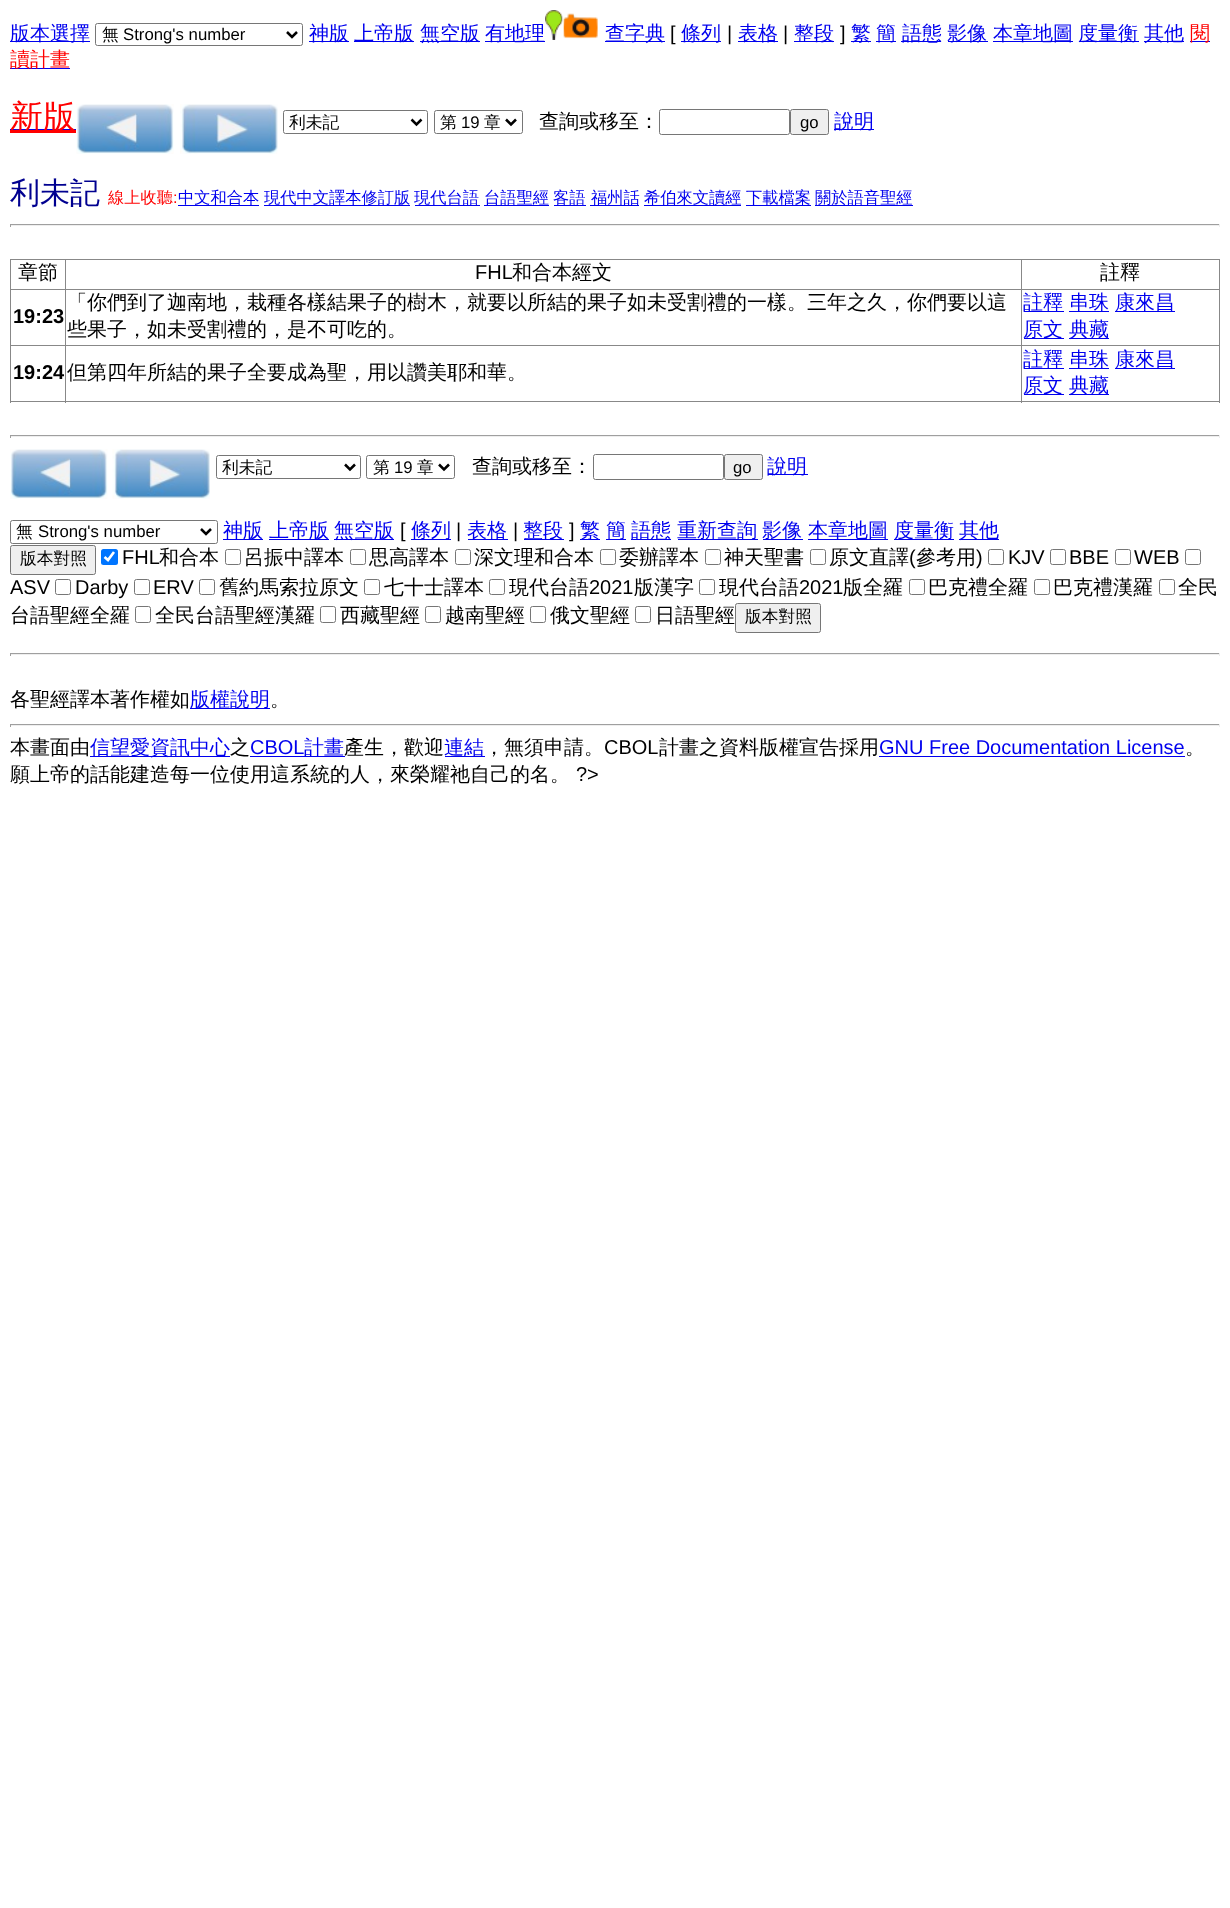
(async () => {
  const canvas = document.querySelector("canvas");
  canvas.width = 1230;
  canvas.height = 1908;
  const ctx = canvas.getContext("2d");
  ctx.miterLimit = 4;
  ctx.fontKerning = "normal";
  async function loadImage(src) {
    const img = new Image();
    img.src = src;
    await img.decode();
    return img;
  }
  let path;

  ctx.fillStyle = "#ffffff";
  ctx.fillRect(0, 0, 1230, 1908);
  ctx.fillStyle = "#0000ee";
  ctx.fillRect(10, 41, 80, 1);
  ctx.beginPath();
  ctx.roundRect(95.5, 23.5, 207, 22, 2);
  ctx.strokeStyle = "#767676";
  ctx.stroke();
  path = new Path2D("M287 32L292 37L297 32");
  ctx.strokeStyle = "#000000";
  ctx.lineWidth = 2.5;
  ctx.stroke(path);
  for (const [x, y, w, h, color] of [
    [309, 41, 40, 1, "#0000ee"],
    [354, 41, 60, 1, "#0000ee"],
    [420, 41, 60, 1, "#0000ee"],
    [485, 41, 60, 1, "#0000ee"],
  ]) {
    ctx.fillStyle = color;
    ctx.fillRect(x, y, w, h);
  }
  ctx.drawImage(await loadImage("img/1.png"), 545, 10, 18, 30);
  ctx.drawImage(await loadImage("img/2.png"), 562, 13, 36, 26);
  for (const [x, y, w, h, color] of [
    [605, 41, 60, 1, "#0000ee"],
    [681, 41, 40, 1, "#0000ee"],
    [738, 41, 40, 1, "#0000ee"],
    [794, 41, 40, 1, "#0000ee"],
    [851, 41, 20, 1, "#0000ee"],
    [876, 41, 20, 1, "#0000ee"],
    [901, 41, 40, 1, "#0000ee"],
    [948, 41, 40, 1, "#0000ee"],
    [993, 41, 80, 1, "#0000ee"],
    [1079, 41, 60, 1, "#0000ee"],
    [1144, 41, 40, 1, "#0000ee"],
    [1190, 41, 20, 1, "#0000ee"],
    [10, 68, 60, 1, "#0000ee"],
    [10, 130, 66, 3, "#ff0000"],
    [10, 129, 66, 1, "#0000ee"],
  ]) {
    ctx.fillStyle = color;
    ctx.fillRect(x, y, w, h);
  }
  ctx.drawImage(await loadImage("img/3.png"), 76, 104, 98, 50);
  ctx.drawImage(await loadImage("img/4.png"), 180, 104, 98, 50);
  ctx.beginPath();
  ctx.roundRect(283.5, 110.5, 144, 23, 2);
  ctx.strokeStyle = "#767676";
  ctx.lineWidth = 1;
  ctx.stroke();
  path = new Path2D("M411.5 119.5L416.5 124.5L421.5 119.5");
  ctx.strokeStyle = "#000000";
  ctx.lineWidth = 2.5;
  ctx.stroke(path);
  ctx.beginPath();
  ctx.roundRect(434.5, 110.5, 88, 23, 2);
  ctx.strokeStyle = "#767676";
  ctx.lineWidth = 1;
  ctx.stroke();
  path = new Path2D("M506 119.5L511 124.5L516 119.5");
  ctx.strokeStyle = "#000000";
  ctx.lineWidth = 2.5;
  ctx.stroke(path);
  ctx.beginPath();
  ctx.roundRect(659.5, 109.5, 130, 25, 2);
  ctx.strokeStyle = "#767676";
  ctx.lineWidth = 1;
  ctx.stroke();
  ctx.fillStyle = "#efefef";
  ctx.beginPath();
  ctx.roundRect(790.5, 109.5, 38, 25, 2);
  ctx.fill();
  ctx.stroke();
  for (const [x, y, w, h, color] of [
    [834, 129, 40, 1, "#0000ee"],
    [178, 205, 81, 1, "#0000ee"],
    [264, 205, 146, 1, "#0000ee"],
    [415, 205, 65, 1, "#0000ee"],
    [484, 205, 65, 1, "#0000ee"],
    [554, 205, 32, 1, "#0000ee"],
    [590, 205, 49, 1, "#0000ee"],
    [644, 205, 97, 1, "#0000ee"],
    [746, 205, 65, 1, "#0000ee"],
    [815, 205, 98, 1, "#0000ee"],
    [10, 224, 1210, 1, "#9f9f9f"],
    [1219, 224, 1, 3, "#eeeeee"],
    [10, 225, 1210, 1, "#eeeeee"],
    [10, 224, 1, 3, "#9f9f9f"],
    [10, 259, 1210, 1, "#888888"],
    [1219, 259, 1, 144, "#888888"],
    [10, 401, 1210, 1, "#888888"],
    [10, 259, 1, 144, "#888888"],
    [10, 289, 1210, 1, "#888888"],
    [1024, 311, 40, 1, "#0000ee"],
    [1069, 311, 40, 1, "#0000ee"],
    [1115, 311, 60, 1, "#0000ee"],
    [1024, 338, 40, 1, "#0000ee"],
    [1069, 338, 40, 1, "#0000ee"],
    [10, 345, 1210, 1, "#888888"],
    [65, 259, 1, 144, "#888888"],
    [1021, 259, 1, 144, "#888888"],
    [1024, 368, 40, 1, "#0000ee"],
    [1069, 368, 40, 1, "#0000ee"],
    [1115, 368, 60, 1, "#0000ee"],
    [1024, 394, 40, 1, "#0000ee"],
    [1069, 394, 40, 1, "#0000ee"],
    [10, 435, 1210, 1, "#9f9f9f"],
    [1219, 435, 1, 3, "#eeeeee"],
    [10, 436, 1210, 1, "#eeeeee"],
    [10, 435, 1, 3, "#9f9f9f"],
  ]) {
    ctx.fillStyle = color;
    ctx.fillRect(x, y, w, h);
  }
  ctx.drawImage(await loadImage("img/5.png"), 10, 449, 98, 50);
  ctx.drawImage(await loadImage("img/6.png"), 112, 449, 98, 50);
  ctx.beginPath();
  ctx.roundRect(216.5, 455.5, 144, 23, 2);
  ctx.stroke();
  path = new Path2D("M345 464.5L350 469.5L355 464.5");
  ctx.strokeStyle = "#000000";
  ctx.lineWidth = 2.5;
  ctx.stroke(path);
  ctx.beginPath();
  ctx.roundRect(366.5, 455.5, 88, 23, 2);
  ctx.strokeStyle = "#767676";
  ctx.lineWidth = 1;
  ctx.stroke();
  path = new Path2D("M439 464.5L444 469.5L449 464.5");
  ctx.strokeStyle = "#000000";
  ctx.lineWidth = 2.5;
  ctx.stroke(path);
  ctx.beginPath();
  ctx.roundRect(593.5, 454.5, 130, 25, 2);
  ctx.strokeStyle = "#767676";
  ctx.lineWidth = 1;
  ctx.stroke();
  ctx.fillStyle = "#efefef";
  ctx.beginPath();
  ctx.roundRect(724.5, 454.5, 38, 25, 2);
  ctx.fill();
  ctx.stroke();
  ctx.fillStyle = "#0000ee";
  ctx.fillRect(768, 474, 40, 1);
  ctx.beginPath();
  ctx.roundRect(10.5, 520.5, 207, 23, 2);
  ctx.stroke();
  path = new Path2D("M201 529L206 534L211 529");
  ctx.strokeStyle = "#000000";
  ctx.lineWidth = 2.5;
  ctx.stroke(path);
  for (const [x, y, w, h, color] of [
    [223, 539, 40, 1, "#0000ee"],
    [269, 539, 60, 1, "#0000ee"],
    [334, 539, 60, 1, "#0000ee"],
    [411, 539, 40, 1, "#0000ee"],
    [468, 539, 40, 1, "#0000ee"],
    [524, 539, 40, 1, "#0000ee"],
    [580, 539, 20, 1, "#0000ee"],
    [606, 539, 20, 1, "#0000ee"],
    [631, 539, 40, 1, "#0000ee"],
    [678, 539, 80, 1, "#0000ee"],
    [763, 539, 40, 1, "#0000ee"],
    [808, 539, 80, 1, "#0000ee"],
    [894, 539, 60, 1, "#0000ee"],
    [959, 539, 40, 1, "#0000ee"],
  ]) {
    ctx.fillStyle = color;
    ctx.fillRect(x, y, w, h);
  }
  ctx.fillStyle = "#efefef";
  ctx.beginPath();
  ctx.roundRect(10.5, 545.5, 85, 29, 2);
  ctx.fill();
  ctx.strokeStyle = "#767676";
  ctx.lineWidth = 1;
  ctx.stroke();
  ctx.fillStyle = "#0075ff";
  ctx.beginPath();
  ctx.roundRect(101, 549, 17, 16, 2.5);
  ctx.fill();
  path = new Path2D("M104.5 557L108 560L114 552");
  ctx.strokeStyle = "#ffffff";
  ctx.lineWidth = 2.6;
  ctx.stroke(path);
  ctx.beginPath();
  ctx.roundRect(225.5, 549.5, 15, 15, 2);
  ctx.strokeStyle = "#767676";
  ctx.lineWidth = 1;
  ctx.stroke();
  ctx.beginPath();
  ctx.roundRect(350.5, 549.5, 15, 15, 2);
  ctx.stroke();
  ctx.beginPath();
  ctx.roundRect(455.5, 549.5, 15, 15, 2);
  ctx.stroke();
  ctx.beginPath();
  ctx.roundRect(600.5, 549.5, 15, 15, 2);
  ctx.stroke();
  ctx.beginPath();
  ctx.roundRect(705.5, 549.5, 15, 15, 2);
  ctx.stroke();
  ctx.beginPath();
  ctx.roundRect(810.5, 549.5, 15, 15, 2);
  ctx.stroke();
  ctx.beginPath();
  ctx.roundRect(988.5, 549.5, 15, 15, 2);
  ctx.stroke();
  ctx.beginPath();
  ctx.roundRect(1050.5, 549.5, 15, 15, 2);
  ctx.stroke();
  ctx.beginPath();
  ctx.roundRect(1115.5, 549.5, 15, 15, 2);
  ctx.stroke();
  ctx.beginPath();
  ctx.roundRect(1185.5, 549.5, 15, 15, 2);
  ctx.stroke();
  ctx.beginPath();
  ctx.roundRect(55.5, 579.5, 15, 15, 2);
  ctx.stroke();
  ctx.beginPath();
  ctx.roundRect(134.5, 579.5, 15, 15, 2);
  ctx.stroke();
  ctx.beginPath();
  ctx.roundRect(199.5, 579.5, 15, 15, 2);
  ctx.stroke();
  ctx.beginPath();
  ctx.roundRect(364.5, 579.5, 15, 15, 2);
  ctx.stroke();
  ctx.beginPath();
  ctx.roundRect(489.5, 579.5, 15, 15, 2);
  ctx.stroke();
  ctx.beginPath();
  ctx.roundRect(699.5, 579.5, 15, 15, 2);
  ctx.stroke();
  ctx.beginPath();
  ctx.roundRect(909.5, 579.5, 15, 15, 2);
  ctx.stroke();
  ctx.beginPath();
  ctx.roundRect(1034.5, 579.5, 15, 15, 2);
  ctx.stroke();
  ctx.beginPath();
  ctx.roundRect(1159.5, 579.5, 15, 15, 2);
  ctx.stroke();
  ctx.beginPath();
  ctx.roundRect(135.5, 606.5, 15, 16, 2);
  ctx.stroke();
  ctx.beginPath();
  ctx.roundRect(320.5, 606.5, 15, 16, 2);
  ctx.stroke();
  ctx.beginPath();
  ctx.roundRect(425.5, 606.5, 15, 16, 2);
  ctx.stroke();
  ctx.beginPath();
  ctx.roundRect(530.5, 606.5, 15, 16, 2);
  ctx.stroke();
  ctx.beginPath();
  ctx.roundRect(635.5, 606.5, 15, 16, 2);
  ctx.stroke();
  ctx.fillStyle = "#efefef";
  ctx.beginPath();
  ctx.roundRect(735.5, 603.5, 85, 29, 2);
  ctx.fill();
  ctx.stroke();
  for (const [x, y, w, h, color] of [
    [10, 653, 1210, 1, "#9f9f9f"],
    [1219, 653, 1, 3, "#eeeeee"],
    [10, 654, 1210, 1, "#eeeeee"],
    [10, 653, 1, 3, "#9f9f9f"],
    [190, 708, 80, 1, "#0000ee"],
    [10, 724, 1210, 1, "#9f9f9f"],
    [1219, 724, 1, 3, "#eeeeee"],
    [10, 725, 1210, 1, "#eeeeee"],
    [10, 724, 1, 3, "#9f9f9f"],
    [90, 756, 140, 1, "#0000ee"],
    [250, 756, 95, 1, "#0000ee"],
    [445, 756, 40, 1, "#0000ee"],
    [879, 756, 306, 1, "#0000ee"],
  ]) {
    ctx.fillStyle = color;
    ctx.fillRect(x, y, w, h);
  }
  ctx.font = "500 20px WenQuanYi Zen Hei";
  ctx.fillText("版本選擇", 10, 40);
  ctx.font = "500 16.75px WenQuanYi Zen Hei";
  ctx.fillStyle = "#000000";
  ctx.fillText("無", 102, 40);
  ctx.font = "16.75px Liberation Sans";
  ctx.fillText("Strong's number", 123, 40);
  ctx.font = "500 20px WenQuanYi Zen Hei";
  ctx.fillStyle = "#0000ee";
  for (const [text, x, y] of [
    ["神版", 309, 40],
    ["上帝版", 354, 40],
    ["無空版", 420, 40],
    ["有地理", 485, 40],
    ["查字典", 605, 40],
  ]) {
    ctx.fillText(text, x, y);
  }
  ctx.font = "20px Liberation Sans";
  ctx.fillStyle = "#000000";
  ctx.fillText("[", 670, 40);
  ctx.font = "500 20px WenQuanYi Zen Hei";
  ctx.fillStyle = "#0000ee";
  ctx.fillText("條列", 681, 40);
  ctx.font = "20px Liberation Sans";
  ctx.fillStyle = "#000000";
  ctx.fillText("|", 727, 40);
  ctx.font = "500 20px WenQuanYi Zen Hei";
  ctx.fillStyle = "#0000ee";
  ctx.fillText("表格", 738, 40);
  ctx.font = "20px Liberation Sans";
  ctx.fillStyle = "#000000";
  ctx.fillText("|", 783, 40);
  ctx.font = "500 20px WenQuanYi Zen Hei";
  ctx.fillStyle = "#0000ee";
  ctx.fillText("整段", 794, 40);
  ctx.font = "20px Liberation Sans";
  ctx.fillStyle = "#000000";
  ctx.fillText("]", 840, 40);
  ctx.font = "500 20px WenQuanYi Zen Hei";
  ctx.fillStyle = "#0000ee";
  for (const [text, x, y] of [
    ["繁", 851, 40],
    ["簡", 876, 40],
    ["語態", 902, 40],
    ["影像", 947, 40],
    ["本章地圖", 993, 40],
    ["度量衡", 1078, 40],
    ["其他", 1144, 40],
  ]) {
    ctx.fillText(text, x, y);
  }
  ctx.fillStyle = "#ff0000";
  ctx.fillText("閱", 1190, 40);
  ctx.fillText("讀計畫", 10, 66);
  ctx.font = "500 33px WenQuanYi Zen Hei";
  ctx.fillText("新版", 10, 128);
  ctx.font = "500 16.75px WenQuanYi Zen Hei";
  ctx.fillStyle = "#000000";
  ctx.fillText("利未記", 289, 128);
  ctx.fillText("第", 440, 128);
  ctx.font = "16.75px Liberation Sans";
  ctx.fillText("19", 461, 128);
  ctx.font = "500 16.75px WenQuanYi Zen Hei";
  ctx.fillText("章", 484, 128);
  ctx.font = "500 20px WenQuanYi Zen Hei";
  ctx.fillText("查詢或移至：", 539, 128);
  ctx.font = "16.75px Liberation Sans";
  ctx.fillText("go", 800, 128);
  ctx.font = "500 20px WenQuanYi Zen Hei";
  ctx.fillStyle = "#0000ee";
  ctx.fillText("說明", 834, 128);
  ctx.font = "500 30px WenQuanYi Zen Hei";
  ctx.fillStyle = "#000090";
  ctx.fillText("利未記", 10, 203);
  ctx.font = "500 16.25px WenQuanYi Zen Hei";
  ctx.fillStyle = "#ff0000";
  ctx.fillText("線上收聽", 108, 203);
  ctx.font = "16.25px Liberation Sans";
  ctx.fillText(":", 173, 203);
  ctx.font = "500 16.25px WenQuanYi Zen Hei";
  ctx.fillStyle = "#0000ee";
  for (const [text, x, y] of [
    ["中文和合本", 178, 203],
    ["現代中文譯本修訂版", 264, 203],
    ["現代台語", 414, 203],
    ["台語聖經", 484, 203],
    ["客語", 553, 203],
    ["福州話", 591, 203],
    ["希伯來文讀經", 644, 203],
    ["下載檔案", 746, 203],
    ["關於語音聖經", 815, 203],
  ]) {
    ctx.fillText(text, x, y);
  }
  ctx.font = "500 20px WenQuanYi Zen Hei";
  ctx.fillStyle = "#000000";
  ctx.fillText("章節", 18, 279);
  ctx.font = "20px Liberation Sans";
  ctx.fillText("FHL", 475, 279);
  ctx.font = "500 20px WenQuanYi Zen Hei";
  ctx.fillText("和合本經文", 512, 279);
  ctx.fillText("註釋", 1100, 279);
  ctx.font = "bold 20px Liberation Sans";
  ctx.fillText("19:23", 13, 323);
  ctx.font = "500 20px WenQuanYi Zen Hei";
  ctx.fillText("「你們到了迦南地，栽種各樣結果子的樹木，就要以所結的果子如未受割禮的一樣。三年之久，你們要以這", 67, 309);
  ctx.fillText("些果子，如未受割禮的，是不可吃的。", 67, 336);
  ctx.fillStyle = "#0000ee";
  for (const [text, x, y] of [
    ["註釋", 1023, 309],
    ["串珠", 1069, 309],
    ["康來昌", 1115, 309],
    ["原文", 1023, 336],
    ["典藏", 1069, 336],
  ]) {
    ctx.fillText(text, x, y);
  }
  ctx.font = "bold 20px Liberation Sans";
  ctx.fillStyle = "#000000";
  ctx.fillText("19:24", 13, 379);
  ctx.font = "500 20px WenQuanYi Zen Hei";
  ctx.fillText("但第四年所結的果子全要成為聖，用以讚美耶和華。", 67, 379);
  ctx.fillStyle = "#0000ee";
  for (const [text, x, y] of [
    ["註釋", 1023, 366],
    ["串珠", 1069, 366],
    ["康來昌", 1115, 366],
    ["原文", 1023, 392],
    ["典藏", 1069, 392],
  ]) {
    ctx.fillText(text, x, y);
  }
  ctx.font = "500 16.75px WenQuanYi Zen Hei";
  ctx.fillStyle = "#000000";
  ctx.fillText("利未記", 222, 473);
  ctx.fillText("第", 373, 473);
  ctx.font = "16.75px Liberation Sans";
  ctx.fillText("19", 394, 473);
  ctx.font = "500 16.75px WenQuanYi Zen Hei";
  ctx.fillText("章", 417, 473);
  ctx.font = "500 20px WenQuanYi Zen Hei";
  ctx.fillText("查詢或移至：", 472, 473);
  ctx.font = "16.75px Liberation Sans";
  ctx.fillText("go", 733, 473);
  ctx.font = "500 20px WenQuanYi Zen Hei";
  ctx.fillStyle = "#0000ee";
  ctx.fillText("說明", 767, 473);
  ctx.font = "500 16.75px WenQuanYi Zen Hei";
  ctx.fillStyle = "#000000";
  ctx.fillText("無", 16, 537);
  ctx.font = "16.75px Liberation Sans";
  ctx.fillText("Strong's number", 38, 537);
  ctx.font = "500 20px WenQuanYi Zen Hei";
  ctx.fillStyle = "#0000ee";
  for (const [text, x, y] of [
    ["神版", 223, 537],
    ["上帝版", 269, 537],
    ["無空版", 334, 537],
  ]) {
    ctx.fillText(text, x, y);
  }
  ctx.font = "20px Liberation Sans";
  ctx.fillStyle = "#000000";
  ctx.fillText("[", 400, 537);
  ctx.font = "500 20px WenQuanYi Zen Hei";
  ctx.fillStyle = "#0000ee";
  ctx.fillText("條列", 411, 537);
  ctx.font = "20px Liberation Sans";
  ctx.fillStyle = "#000000";
  ctx.fillText("|", 456, 537);
  ctx.font = "500 20px WenQuanYi Zen Hei";
  ctx.fillStyle = "#0000ee";
  ctx.fillText("表格", 467, 537);
  ctx.font = "20px Liberation Sans";
  ctx.fillStyle = "#000000";
  ctx.fillText("|", 513, 537);
  ctx.font = "500 20px WenQuanYi Zen Hei";
  ctx.fillStyle = "#0000ee";
  ctx.fillText("整段", 523, 537);
  ctx.font = "20px Liberation Sans";
  ctx.fillStyle = "#000000";
  ctx.fillText("]", 569, 537);
  ctx.font = "500 20px WenQuanYi Zen Hei";
  ctx.fillStyle = "#0000ee";
  for (const [text, x, y] of [
    ["繁", 580, 537],
    ["簡", 606, 537],
    ["語態", 631, 537],
    ["重新查詢", 677, 537],
    ["影像", 762, 537],
    ["本章地圖", 808, 537],
    ["度量衡", 894, 537],
    ["其他", 959, 537],
  ]) {
    ctx.fillText(text, x, y);
  }
  ctx.font = "500 16.75px WenQuanYi Zen Hei";
  ctx.fillStyle = "#000000";
  ctx.fillText("版本對照", 20, 564);
  ctx.font = "20px Liberation Sans";
  ctx.fillText("FHL", 122, 564);
  ctx.font = "500 20px WenQuanYi Zen Hei";
  for (const [text, x, y] of [
    ["和合本", 159, 564],
    ["呂振中譯本", 244, 564],
    ["思高譯本", 369, 564],
    ["深文理和合本", 474, 564],
    ["委辦譯本", 619, 564],
    ["神天聖書", 724, 564],
    ["原文直譯", 829, 564],
  ]) {
    ctx.fillText(text, x, y);
  }
  ctx.font = "20px Liberation Sans";
  ctx.fillText("(", 909, 564);
  ctx.font = "500 20px WenQuanYi Zen Hei";
  ctx.fillText("參考用", 916, 564);
  ctx.font = "20px Liberation Sans";
  for (const [text, x, y] of [
    [")", 976, 564],
    ["KJV", 1008, 564],
    ["BBE", 1069, 564],
    ["WEB", 1134, 564],
    ["ASV", 10, 594],
    ["Darby", 75, 594],
    ["ERV", 153, 594],
  ]) {
    ctx.fillText(text, x, y);
  }
  ctx.font = "500 20px WenQuanYi Zen Hei";
  for (const [text, x, y] of [
    ["舊約馬索拉原文", 219, 594],
    ["七十士譯本", 384, 594],
    ["現代台語", 509, 594],
  ]) {
    ctx.fillText(text, x, y);
  }
  ctx.font = "20px Liberation Sans";
  ctx.fillText("2021", 589, 594);
  ctx.font = "500 20px WenQuanYi Zen Hei";
  ctx.fillText("版漢字", 634, 594);
  ctx.fillText("現代台語", 719, 594);
  ctx.font = "20px Liberation Sans";
  ctx.fillText("2021", 799, 594);
  ctx.font = "500 20px WenQuanYi Zen Hei";
  for (const [text, x, y] of [
    ["版全羅", 843, 594],
    ["巴克禮全羅", 928, 594],
    ["巴克禮漢羅", 1053, 594],
    ["全民", 1178, 594],
    ["台語聖經全羅", 10, 622],
    ["全民台語聖經漢羅", 155, 622],
    ["西藏聖經", 340, 622],
    ["越南聖經", 445, 622],
    ["俄文聖經", 550, 622],
    ["日語聖經", 655, 622],
  ]) {
    ctx.fillText(text, x, y);
  }
  ctx.font = "500 16.75px WenQuanYi Zen Hei";
  ctx.fillText("版本對照", 745, 622);
  ctx.font = "500 20px WenQuanYi Zen Hei";
  ctx.fillText("各聖經譯本著作權如", 10, 706);
  ctx.fillStyle = "#0000ee";
  ctx.fillText("版權說明", 190, 706);
  ctx.fillStyle = "#000000";
  ctx.fillText("。", 270, 706);
  ctx.fillText("本畫面由", 10, 754);
  ctx.fillStyle = "#0000ee";
  ctx.fillText("信望愛資訊中心", 90, 754);
  ctx.fillStyle = "#000000";
  ctx.fillText("之", 230, 754);
  ctx.font = "20px Liberation Sans";
  ctx.fillStyle = "#0000ee";
  ctx.fillText("CBOL", 250, 754);
  ctx.font = "500 20px WenQuanYi Zen Hei";
  ctx.fillText("計畫", 304, 754);
  ctx.fillStyle = "#000000";
  ctx.fillText("產生，歡迎", 344, 754);
  ctx.fillStyle = "#0000ee";
  ctx.fillText("連結", 444, 754);
  ctx.fillStyle = "#000000";
  ctx.fillText("，無須申請。", 484, 754);
  ctx.font = "20px Liberation Sans";
  ctx.fillText("CBOL", 604, 754);
  ctx.font = "500 20px WenQuanYi Zen Hei";
  ctx.fillText("計畫之資料版權宣告採用", 659, 754);
  ctx.font = "20px Liberation Sans";
  ctx.fillStyle = "#0000ee";
  ctx.fillText("GNU Free Documentation License", 879, 754);
  ctx.font = "500 20px WenQuanYi Zen Hei";
  ctx.fillStyle = "#000000";
  ctx.fillText("。", 1185, 754);
  ctx.fillText("願上帝的話能建造每一位使用這系統的人，來榮耀祂自己的名。", 10, 781);
  ctx.font = "20px Liberation Sans";
  ctx.fillText("?>", 576, 781);
})();
